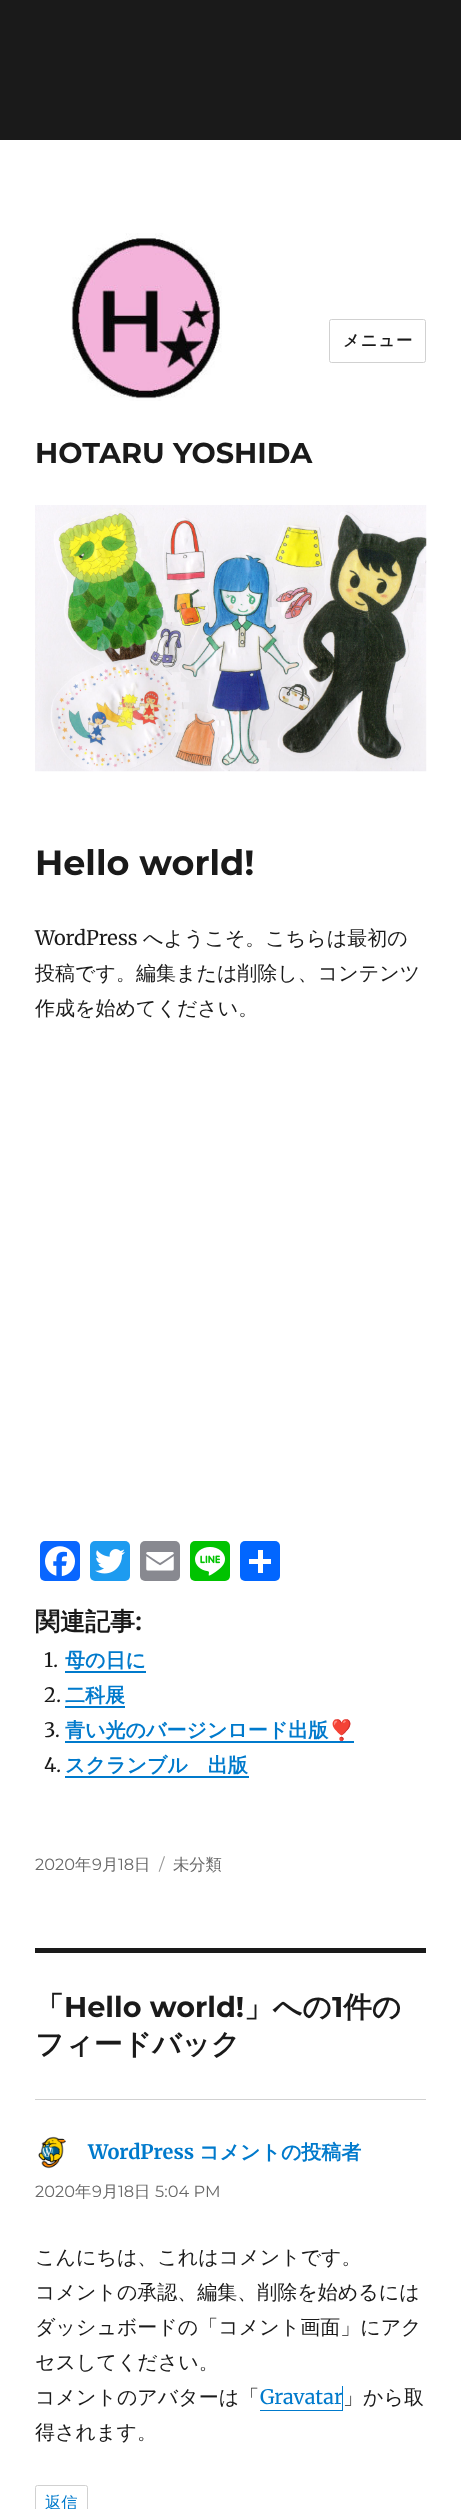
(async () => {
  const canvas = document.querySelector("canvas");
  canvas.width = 461;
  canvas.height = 2509;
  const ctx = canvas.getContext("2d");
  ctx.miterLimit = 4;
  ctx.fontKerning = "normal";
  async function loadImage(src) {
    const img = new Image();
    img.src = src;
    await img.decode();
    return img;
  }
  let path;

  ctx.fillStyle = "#1a1a1a";
  ctx.fillRect(0, 0, 461, 2509);
  ctx.fillStyle = "#ffffff";
  ctx.fillRect(0, 140, 461, 2369);
  ctx.beginPath();
  ctx.roundRect(329.5, 319.5, 96, 43, 2);
  ctx.strokeStyle = "#d1d1d1";
  ctx.stroke();
  ctx.drawImage(await loadImage("img/1.png"), 71, 233, 151, 168);
  ctx.drawImage(await loadImage("img/2.png"), 35, 505, 392, 267);
  ctx.fillStyle = "#0866ff";
  ctx.beginPath();
  ctx.roundRect(40, 1541, 40, 40, 5);
  ctx.fill();
  ctx.drawImage(await loadImage("img/3.png"), 45, 1546, 30, 31);
  ctx.fillStyle = "#1d9bf0";
  ctx.beginPath();
  ctx.roundRect(90, 1541, 40, 40, 5);
  ctx.fill();
  ctx.drawImage(await loadImage("img/4.png"), 95, 1549, 30, 25);
  ctx.fillStyle = "#888990";
  ctx.beginPath();
  ctx.roundRect(140, 1541, 40, 40, 5);
  ctx.fill();
  ctx.drawImage(await loadImage("img/5.png"), 146, 1552, 28, 19);
  ctx.fillStyle = "#00c300";
  ctx.beginPath();
  ctx.roundRect(190, 1541, 40, 40, 5);
  ctx.fill();
  ctx.drawImage(await loadImage("img/6.png"), 195, 1547, 30, 29);
  ctx.fillStyle = "#0166ff";
  ctx.beginPath();
  ctx.roundRect(240, 1541, 40, 40, 5);
  ctx.fill();
  for (const [x, y, w, h, color] of [
    [258, 1550, 5, 23, "#ffffff"],
    [249, 1559, 22, 5, "#ffffff"],
    [65, 1671, 81, 2, "#007acc"],
    [65, 1706, 60, 2, "#007acc"],
  ]) {
    ctx.fillStyle = color;
    ctx.fillRect(x, y, w, h);
  }
  path = new Path2D("M65 1741V1743H354V1718V1741Z");
  ctx.fill(path);
  path = new Path2D("M65 1776V1778H249V1753V1776Z");
  ctx.fill(path);
  ctx.fillStyle = "#1a1a1a";
  ctx.fillRect(35, 1948, 391, 5);
  ctx.fillStyle = "#d1d1d1";
  ctx.fillRect(35, 2099, 391, 1);
  ctx.drawImage(await loadImage("img/7.png"), 38, 2136, 28, 33);
  ctx.fillStyle = "#007acc";
  path = new Path2D("M260 2410V2411H343V2386H342V2410Z");
  ctx.fill(path);
  ctx.beginPath();
  ctx.roundRect(35.5, 2485.5, 52, 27, 2);
  ctx.stroke();
  ctx.letterSpacing = "1px";
  ctx.font = "bold 16.25px WenQuanYi Zen Hei";
  ctx.fillStyle = "#1a1a1a";
  ctx.fillText("メニュー", 343, 346);
  ctx.letterSpacing = "0px";
  ctx.font = "bold 28.75px Montserrat";
  ctx.fillText("HOTARU YOSHIDA", 35, 463);
  ctx.font = "bold 35px Montserrat";
  ctx.fillText("Hello world!", 35, 875);
  ctx.font = "20px Merriweather";
  ctx.fillText("WordPress", 35, 945);
  ctx.font = "500 20px WenQuanYi Zen Hei";
  for (const [text, x, y] of [
    ["へようこそ。こちらは最初の", 143, 945],
    ["投稿です。編集または削除し、コンテンツ", 35, 980],
    ["作成を始めてください。", 35, 1015],
  ]) {
    ctx.fillText(text, x, y);
  }
  ctx.font = "bold 25px WenQuanYi Zen Hei";
  ctx.fillText("関連記事", 35, 1630);
  ctx.font = "bold 25px Merriweather";
  ctx.fillText(":", 135, 1630);
  ctx.font = "20px Merriweather";
  ctx.fillText("1.", 44, 1667);
  ctx.font = "bold 20px WenQuanYi Zen Hei";
  ctx.fillStyle = "#007acc";
  ctx.fillText("母の日に", 65, 1667);
  ctx.font = "20px Merriweather";
  ctx.fillStyle = "#1a1a1a";
  ctx.fillText("2.", 44, 1702);
  ctx.font = "bold 20px WenQuanYi Zen Hei";
  ctx.fillStyle = "#007acc";
  ctx.fillText("二科展", 65, 1702);
  ctx.font = "20px Merriweather";
  ctx.fillStyle = "#1a1a1a";
  ctx.fillText("3.", 44, 1737);
  ctx.font = "bold 20px WenQuanYi Zen Hei";
  ctx.fillStyle = "#007acc";
  ctx.fillText("青い光のバージンロード出版", 65, 1737);
  ctx.font = "bold 20px Noto Color Emoji";
  ctx.fillText("❣️", 329, 1737);
  ctx.font = "20px Merriweather";
  ctx.fillStyle = "#1a1a1a";
  ctx.fillText("4.", 44, 1772);
  ctx.font = "bold 20px WenQuanYi Zen Hei";
  ctx.fillStyle = "#007acc";
  ctx.fillText("スクランブル　出版", 65, 1772);
  ctx.font = "16.25px Montserrat";
  ctx.fillStyle = "#686868";
  ctx.fillText("2020", 35, 1870);
  ctx.font = "500 16.25px WenQuanYi Zen Hei";
  ctx.fillText("年", 75, 1870);
  ctx.font = "16.25px Montserrat";
  ctx.fillText("9", 92, 1870);
  ctx.font = "500 16.25px WenQuanYi Zen Hei";
  ctx.fillText("月", 102, 1870);
  ctx.font = "16.25px Montserrat";
  ctx.fillText("18", 118, 1870);
  ctx.font = "500 16.25px WenQuanYi Zen Hei";
  ctx.fillText("日", 134, 1870);
  ctx.font = "16.25px Montserrat";
  ctx.fillStyle = "#959595";
  ctx.fillText("/", 159, 1870);
  ctx.font = "500 16.25px WenQuanYi Zen Hei";
  ctx.fillStyle = "#686868";
  ctx.fillText("未分類", 173, 1870);
  ctx.font = "bold 28.75px WenQuanYi Zen Hei";
  ctx.fillStyle = "#1a1a1a";
  ctx.fillText("「", 35, 2017);
  ctx.font = "bold 28.75px Montserrat";
  ctx.fillText("Hello world!", 64, 2017);
  ctx.font = "bold 28.75px WenQuanYi Zen Hei";
  ctx.fillText("」への", 244, 2017);
  ctx.font = "bold 28.75px Montserrat";
  ctx.fillText("1", 332, 2017);
  ctx.font = "bold 28.75px WenQuanYi Zen Hei";
  ctx.fillText("件の", 343, 2017);
  ctx.fillText("フィードバック", 35, 2054);
  ctx.font = "bold 20px Merriweather";
  ctx.fillStyle = "#007acc";
  ctx.fillText("WordPress", 88, 2159);
  ctx.font = "bold 20px WenQuanYi Zen Hei";
  ctx.fillText("コメントの投稿者", 199, 2159);
  ctx.font = "16.25px Montserrat";
  ctx.fillStyle = "#686868";
  ctx.fillText("2020", 35, 2197);
  ctx.font = "500 16.25px WenQuanYi Zen Hei";
  ctx.fillText("年", 75, 2197);
  ctx.font = "16.25px Montserrat";
  ctx.fillText("9", 92, 2197);
  ctx.font = "500 16.25px WenQuanYi Zen Hei";
  ctx.fillText("月", 102, 2197);
  ctx.font = "16.25px Montserrat";
  ctx.fillText("18", 118, 2197);
  ctx.font = "500 16.25px WenQuanYi Zen Hei";
  ctx.fillText("日", 134, 2197);
  ctx.font = "16.25px Montserrat";
  ctx.fillText("5:04 PM", 155, 2197);
  ctx.font = "500 20px WenQuanYi Zen Hei";
  ctx.fillStyle = "#1a1a1a";
  for (const [text, x, y] of [
    ["こんにちは、これはコメントです。", 35, 2264],
    ["コメントの承認、編集、削除を始めるには", 35, 2299],
    ["ダッシュボードの「コメント画面」にアク", 35, 2334],
    ["セスしてください。", 35, 2369],
    ["コメントのアバターは「", 35, 2404],
  ]) {
    ctx.fillText(text, x, y);
  }
  ctx.font = "20px Merriweather";
  ctx.fillStyle = "#007acc";
  ctx.fillText("Gravatar", 260, 2404);
  ctx.font = "500 20px WenQuanYi Zen Hei";
  ctx.fillStyle = "#1a1a1a";
  ctx.fillText("」から取", 343, 2404);
  ctx.fillText("得されます。", 35, 2439);
  ctx.font = "500 16.25px WenQuanYi Zen Hei";
  ctx.fillStyle = "#007acc";
  ctx.fillText("返信", 45, 2508);
})();
